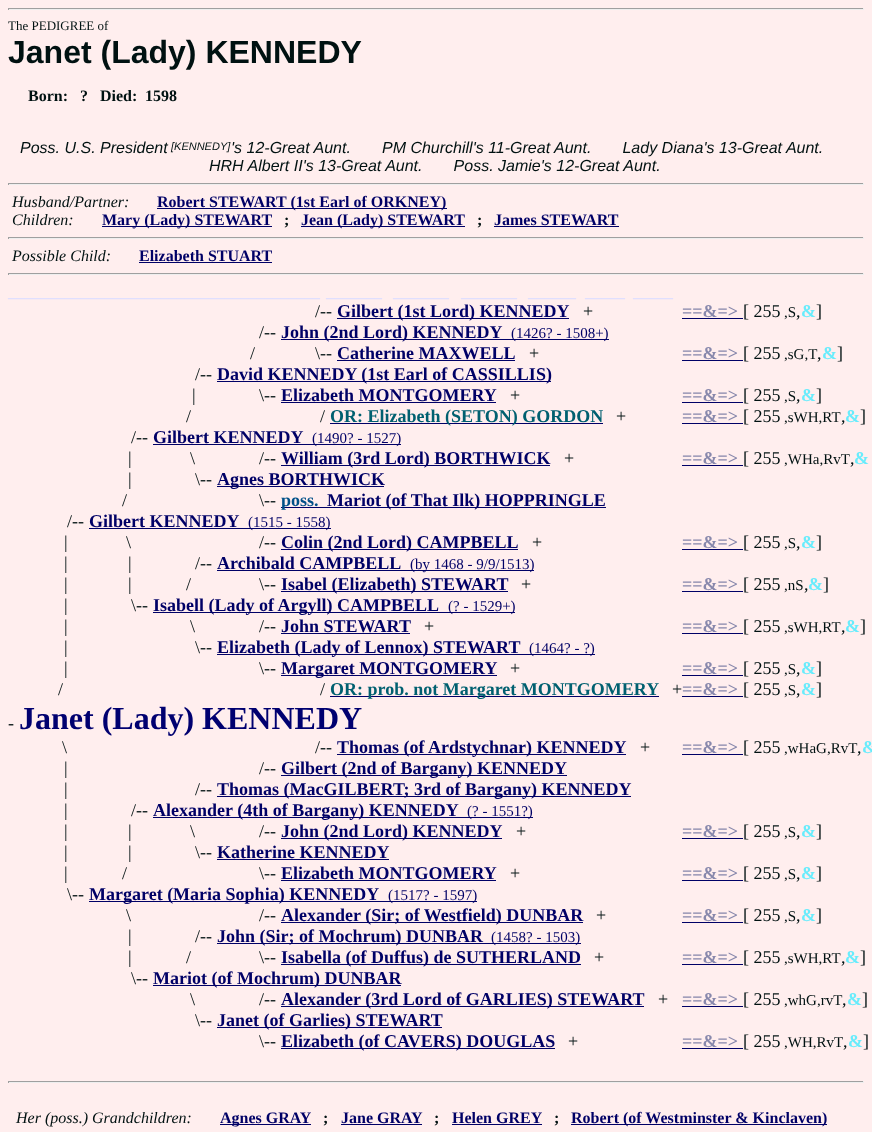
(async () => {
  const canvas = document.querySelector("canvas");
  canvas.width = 872;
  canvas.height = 1132;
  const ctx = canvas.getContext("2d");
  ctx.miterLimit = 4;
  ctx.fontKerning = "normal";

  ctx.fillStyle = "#ffeeee";
  ctx.fillRect(0, 0, 872, 1132);
  for (const [x, y, w, h, color] of [
    [8, 8, 856, 1, "#9f9f9f"],
    [863, 8, 1, 2, "#eeeeee"],
    [8, 9, 856, 1, "#eeeeee"],
    [8, 8, 1, 2, "#9f9f9f"],
    [8, 183, 856, 1, "#9f9f9f"],
    [863, 183, 1, 2, "#eeeeee"],
    [8, 184, 856, 1, "#eeeeee"],
    [8, 183, 1, 2, "#9f9f9f"],
    [157, 208, 290, 1, "#000066"],
    [102, 226, 170, 1, "#000066"],
    [301, 226, 164, 1, "#000066"],
    [494, 226, 125, 1, "#000066"],
    [8, 237, 856, 1, "#9f9f9f"],
    [863, 237, 1, 2, "#eeeeee"],
    [8, 238, 856, 1, "#eeeeee"],
    [8, 237, 1, 2, "#9f9f9f"],
    [139, 262, 133, 1, "#000066"],
    [8, 273, 856, 1, "#9f9f9f"],
    [863, 273, 1, 2, "#eeeeee"],
    [8, 274, 856, 1, "#eeeeee"],
    [8, 273, 1, 2, "#9f9f9f"],
    [337, 318, 232, 1, "#000066"],
    [682, 318, 61, 1, "#000066"],
    [281, 339, 328, 1, "#000066"],
    [337, 360, 178, 1, "#000066"],
    [682, 360, 61, 1, "#000066"],
    [217, 381, 334, 1, "#000066"],
    [281, 402, 215, 1, "#000066"],
    [682, 402, 61, 1, "#000066"],
    [330, 423, 273, 1, "#000066"],
    [682, 423, 61, 1, "#000066"],
    [153, 444, 248, 1, "#000066"],
    [281, 465, 269, 1, "#000066"],
    [682, 465, 61, 1, "#000066"],
    [217, 486, 167, 1, "#000066"],
    [281, 507, 325, 1, "#000066"],
    [89, 528, 242, 1, "#000066"],
    [281, 549, 237, 1, "#000066"],
    [682, 549, 61, 1, "#000066"],
    [217, 570, 317, 1, "#000066"],
    [281, 591, 227, 1, "#000066"],
    [682, 591, 61, 1, "#000066"],
    [153, 612, 362, 1, "#000066"],
    [281, 633, 129, 1, "#000066"],
    [682, 633, 61, 1, "#000066"],
    [217, 654, 378, 1, "#000066"],
    [281, 675, 216, 1, "#000066"],
    [682, 675, 61, 1, "#000066"],
    [330, 696, 329, 1, "#000066"],
    [682, 696, 61, 1, "#000066"],
    [337, 754, 289, 1, "#000066"],
    [682, 754, 61, 1, "#000066"],
    [281, 775, 286, 1, "#000066"],
    [217, 796, 414, 1, "#000066"],
    [153, 817, 380, 1, "#000066"],
    [281, 838, 221, 1, "#000066"],
    [682, 838, 61, 1, "#000066"],
    [217, 859, 172, 1, "#000066"],
    [281, 880, 215, 1, "#000066"],
    [682, 880, 61, 1, "#000066"],
    [89, 901, 388, 1, "#000066"],
    [281, 922, 302, 1, "#000066"],
    [682, 922, 61, 1, "#000066"],
    [217, 943, 265, 1, "#000066"],
    [482, 943, 99, 1, "#000066"],
    [281, 964, 300, 1, "#000066"],
    [682, 964, 61, 1, "#000066"],
    [153, 985, 248, 1, "#000066"],
    [281, 1006, 363, 1, "#000066"],
    [682, 1006, 61, 1, "#000066"],
    [217, 1027, 225, 1, "#000066"],
    [281, 1048, 274, 1, "#000066"],
    [682, 1048, 61, 1, "#000066"],
    [8, 1081, 856, 1, "#9f9f9f"],
    [863, 1081, 1, 2, "#eeeeee"],
    [8, 1082, 856, 1, "#eeeeee"],
    [8, 1081, 1, 2, "#9f9f9f"],
    [220, 1124, 91, 1, "#000066"],
    [341, 1124, 81, 1, "#000066"],
    [452, 1124, 90, 1, "#000066"],
    [571, 1124, 256, 1, "#000066"],
  ]) {
    ctx.fillStyle = color;
    ctx.fillRect(x, y, w, h);
  }
  ctx.font = "13px Liberation Serif";
  ctx.fillStyle = "#001111";
  ctx.fillText("The PEDIGREE of", 8, 30);
  ctx.font = "bold 32px Liberation Sans";
  ctx.fillText("Janet (Lady) KENNEDY", 8, 63);
  ctx.font = "bold 16px Liberation Serif";
  for (const [text, x, y] of [
    ["Born:", 28, 101],
    ["?   Died:", 80, 101],
    ["1598", 145, 101],
  ]) {
    ctx.fillText(text, x, y);
  }
  ctx.font = "italic 16px Liberation Sans";
  ctx.fillText("Poss. U.S. President", 20, 153);
  ctx.font = "italic 11px Liberation Sans";
  ctx.fillText("[KENNEDY]", 171, 150);
  ctx.font = "italic 16px Liberation Sans";
  ctx.fillText("'s 12-Great Aunt.       PM Churchill's 11-Great Aunt.       Lady Diana's 13-Great Aunt.", 231, 153);
  ctx.fillText("HRH Albert II's 13-Great Aunt.       Poss. Jamie's 12-Great Aunt.", 209, 171);
  ctx.font = "italic 16px Liberation Serif";
  ctx.fillText("Husband/Partner:", 12, 207);
  ctx.font = "bold 16px Liberation Serif";
  ctx.fillStyle = "#000066";
  ctx.fillText("Robert STEWART (1st Earl of ORKNEY)", 157, 207);
  ctx.font = "italic 16px Liberation Serif";
  ctx.fillStyle = "#001111";
  ctx.fillText("Children:", 12, 225);
  ctx.font = "bold 16px Liberation Serif";
  ctx.fillStyle = "#000066";
  ctx.fillText("Mary (Lady) STEWART", 102, 225);
  ctx.fillStyle = "#001111";
  ctx.fillText(";", 284, 225);
  ctx.fillStyle = "#000066";
  ctx.fillText("Jean (Lady) STEWART", 301, 225);
  ctx.fillStyle = "#001111";
  ctx.fillText(";", 477, 225);
  ctx.fillStyle = "#000066";
  ctx.fillText("James STEWART", 494, 225);
  ctx.font = "italic 16px Liberation Serif";
  ctx.fillStyle = "#001111";
  ctx.fillText("Possible Child:", 12, 261);
  ctx.font = "bold 16px Liberation Serif";
  ctx.fillStyle = "#000066";
  ctx.fillText("Elizabeth STUART", 139, 261);
  ctx.fillStyle = "#ddddff";
  for (const [text, x, y] of [
    ["_______________________________________", 8, 297],
    ["_______", 326, 297],
    ["_______", 393, 297],
    ["_______", 461, 297],
    ["______", 528, 297],
    ["_____", 585, 297],
    ["_____", 633, 297],
  ]) {
    ctx.fillText(text, x, y);
  }
  ctx.font = "18px Liberation Serif";
  ctx.fillStyle = "#001111";
  ctx.fillText("/--", 315, 317);
  ctx.font = "bold 18px Liberation Serif";
  ctx.fillStyle = "#000066";
  ctx.fillText("Gilbert (1st Lord) KENNEDY", 337, 317);
  ctx.font = "18px Liberation Serif";
  ctx.fillStyle = "#001111";
  ctx.fillText("+", 583, 317);
  ctx.font = "bold 18px Liberation Serif";
  ctx.fillStyle = "#8888ac";
  ctx.fillText("==&=>", 682, 317);
  ctx.font = "18px Liberation Serif";
  ctx.fillStyle = "#001111";
  ctx.fillText("[ 255", 743, 317);
  ctx.font = "15px Liberation Serif";
  ctx.fillText(",S", 784, 317);
  ctx.font = "18px Liberation Serif";
  ctx.fillText(",", 796, 317);
  ctx.font = "bold 18px Liberation Serif";
  ctx.fillStyle = "#68ecfc";
  ctx.fillText("&", 801, 317);
  ctx.font = "18px Liberation Serif";
  ctx.fillStyle = "#001111";
  ctx.fillText("]", 816, 317);
  ctx.fillText("/--", 259, 338);
  ctx.font = "bold 18px Liberation Serif";
  ctx.fillStyle = "#000066";
  ctx.fillText("John (2nd Lord) KENNEDY", 281, 338);
  ctx.font = "15px Liberation Serif";
  ctx.fillText("(1426? - 1508+)", 511, 338);
  ctx.font = "18px Liberation Serif";
  ctx.fillStyle = "#001111";
  ctx.fillText("/", 250, 359);
  ctx.fillText("\\--", 315, 359);
  ctx.font = "bold 18px Liberation Serif";
  ctx.fillStyle = "#000066";
  ctx.fillText("Catherine MAXWELL", 337, 359);
  ctx.font = "18px Liberation Serif";
  ctx.fillStyle = "#001111";
  ctx.fillText("+", 529, 359);
  ctx.font = "bold 18px Liberation Serif";
  ctx.fillStyle = "#8888ac";
  ctx.fillText("==&=>", 682, 359);
  ctx.font = "18px Liberation Serif";
  ctx.fillStyle = "#001111";
  ctx.fillText("[ 255", 743, 359);
  ctx.font = "15px Liberation Serif";
  ctx.fillText(",sG,T", 784, 359);
  ctx.font = "18px Liberation Serif";
  ctx.fillText(",", 817, 359);
  ctx.font = "bold 18px Liberation Serif";
  ctx.fillStyle = "#68ecfc";
  ctx.fillText("&", 822, 359);
  ctx.font = "18px Liberation Serif";
  ctx.fillStyle = "#001111";
  ctx.fillText("]", 837, 359);
  ctx.fillText("/--", 195, 380);
  ctx.font = "bold 18px Liberation Serif";
  ctx.fillStyle = "#000066";
  ctx.fillText("David KENNEDY (1st Earl of CASSILLIS)", 217, 380);
  ctx.font = "18px Liberation Serif";
  ctx.fillStyle = "#001111";
  ctx.fillText("|", 192, 401);
  ctx.fillText("\\--", 259, 401);
  ctx.font = "bold 18px Liberation Serif";
  ctx.fillStyle = "#000066";
  ctx.fillText("Elizabeth MONTGOMERY", 281, 401);
  ctx.font = "18px Liberation Serif";
  ctx.fillStyle = "#001111";
  ctx.fillText("+", 510, 401);
  ctx.font = "bold 18px Liberation Serif";
  ctx.fillStyle = "#8888ac";
  ctx.fillText("==&=>", 682, 401);
  ctx.font = "18px Liberation Serif";
  ctx.fillStyle = "#001111";
  ctx.fillText("[ 255", 743, 401);
  ctx.font = "15px Liberation Serif";
  ctx.fillText(",S", 784, 401);
  ctx.font = "18px Liberation Serif";
  ctx.fillText(",", 796, 401);
  ctx.font = "bold 18px Liberation Serif";
  ctx.fillStyle = "#68ecfc";
  ctx.fillText("&", 801, 401);
  ctx.font = "18px Liberation Serif";
  ctx.fillStyle = "#001111";
  for (const [text, x, y] of [
    ["]", 816, 401],
    ["/", 186, 422],
    ["/", 320, 422],
  ]) {
    ctx.fillText(text, x, y);
  }
  ctx.font = "bold 18px Liberation Serif";
  ctx.fillStyle = "#006070";
  ctx.fillText("OR: Elizabeth (SETON) GORDON", 330, 422);
  ctx.font = "18px Liberation Serif";
  ctx.fillStyle = "#001111";
  ctx.fillText("+", 616, 422);
  ctx.font = "bold 18px Liberation Serif";
  ctx.fillStyle = "#8888ac";
  ctx.fillText("==&=>", 682, 422);
  ctx.font = "18px Liberation Serif";
  ctx.fillStyle = "#001111";
  ctx.fillText("[ 255", 743, 422);
  ctx.font = "15px Liberation Serif";
  ctx.fillText(",sWH,RT", 784, 422);
  ctx.font = "18px Liberation Serif";
  ctx.fillText(",", 841, 422);
  ctx.font = "bold 18px Liberation Serif";
  ctx.fillStyle = "#68ecfc";
  ctx.fillText("&", 845, 422);
  ctx.font = "18px Liberation Serif";
  ctx.fillStyle = "#001111";
  ctx.fillText("]", 860, 422);
  ctx.fillText("/--", 131, 443);
  ctx.font = "bold 18px Liberation Serif";
  ctx.fillStyle = "#000066";
  ctx.fillText("Gilbert KENNEDY", 153, 443);
  ctx.font = "15px Liberation Serif";
  ctx.fillText("(1490? - 1527)", 312, 443);
  ctx.font = "18px Liberation Serif";
  ctx.fillStyle = "#001111";
  for (const [text, x, y] of [
    ["|", 128, 464],
    ["\\", 190, 464],
    ["/--", 259, 464],
  ]) {
    ctx.fillText(text, x, y);
  }
  ctx.font = "bold 18px Liberation Serif";
  ctx.fillStyle = "#000066";
  ctx.fillText("William (3rd Lord) BORTHWICK", 281, 464);
  ctx.font = "18px Liberation Serif";
  ctx.fillStyle = "#001111";
  ctx.fillText("+", 564, 464);
  ctx.font = "bold 18px Liberation Serif";
  ctx.fillStyle = "#8888ac";
  ctx.fillText("==&=>", 682, 464);
  ctx.font = "18px Liberation Serif";
  ctx.fillStyle = "#001111";
  ctx.fillText("[ 255", 743, 464);
  ctx.font = "15px Liberation Serif";
  ctx.fillText(",WHa,RvT", 784, 464);
  ctx.font = "18px Liberation Serif";
  ctx.fillText(",", 850, 464);
  ctx.font = "bold 18px Liberation Serif";
  ctx.fillStyle = "#68ecfc";
  ctx.fillText("&", 854, 464);
  ctx.font = "18px Liberation Serif";
  ctx.fillStyle = "#001111";
  ctx.fillText("|", 128, 485);
  ctx.fillText("\\--", 195, 485);
  ctx.font = "bold 18px Liberation Serif";
  ctx.fillStyle = "#000066";
  ctx.fillText("Agnes BORTHWICK", 217, 485);
  ctx.font = "18px Liberation Serif";
  ctx.fillStyle = "#001111";
  ctx.fillText("/", 122, 506);
  ctx.fillText("\\--", 259, 506);
  ctx.font = "bold 18px Liberation Serif";
  ctx.fillStyle = "#005088";
  ctx.fillText("poss.", 281, 506);
  ctx.fillStyle = "#000066";
  ctx.fillText("Mariot (of That Ilk) HOPPRINGLE", 327, 506);
  ctx.font = "18px Liberation Serif";
  ctx.fillStyle = "#001111";
  ctx.fillText("/--", 67, 527);
  ctx.font = "bold 18px Liberation Serif";
  ctx.fillStyle = "#000066";
  ctx.fillText("Gilbert KENNEDY", 89, 527);
  ctx.font = "15px Liberation Serif";
  ctx.fillText("(1515 - 1558)", 248, 527);
  ctx.font = "18px Liberation Serif";
  ctx.fillStyle = "#001111";
  for (const [text, x, y] of [
    ["|", 64, 548],
    ["\\", 126, 548],
    ["/--", 259, 548],
  ]) {
    ctx.fillText(text, x, y);
  }
  ctx.font = "bold 18px Liberation Serif";
  ctx.fillStyle = "#000066";
  ctx.fillText("Colin (2nd Lord) CAMPBELL", 281, 548);
  ctx.font = "18px Liberation Serif";
  ctx.fillStyle = "#001111";
  ctx.fillText("+", 532, 548);
  ctx.font = "bold 18px Liberation Serif";
  ctx.fillStyle = "#8888ac";
  ctx.fillText("==&=>", 682, 548);
  ctx.font = "18px Liberation Serif";
  ctx.fillStyle = "#001111";
  ctx.fillText("[ 255", 743, 548);
  ctx.font = "15px Liberation Serif";
  ctx.fillText(",S", 784, 548);
  ctx.font = "18px Liberation Serif";
  ctx.fillText(",", 796, 548);
  ctx.font = "bold 18px Liberation Serif";
  ctx.fillStyle = "#68ecfc";
  ctx.fillText("&", 801, 548);
  ctx.font = "18px Liberation Serif";
  ctx.fillStyle = "#001111";
  for (const [text, x, y] of [
    ["]", 816, 548],
    ["|", 64, 569],
    ["|", 128, 569],
    ["/--", 195, 569],
  ]) {
    ctx.fillText(text, x, y);
  }
  ctx.font = "bold 18px Liberation Serif";
  ctx.fillStyle = "#000066";
  ctx.fillText("Archibald CAMPBELL", 217, 569);
  ctx.font = "15px Liberation Serif";
  ctx.fillText("(by 1468 - 9/9/1513)", 410, 569);
  ctx.font = "18px Liberation Serif";
  ctx.fillStyle = "#001111";
  for (const [text, x, y] of [
    ["|", 64, 590],
    ["|", 128, 590],
    ["/", 186, 590],
    ["\\--", 259, 590],
  ]) {
    ctx.fillText(text, x, y);
  }
  ctx.font = "bold 18px Liberation Serif";
  ctx.fillStyle = "#000066";
  ctx.fillText("Isabel (Elizabeth) STEWART", 281, 590);
  ctx.font = "18px Liberation Serif";
  ctx.fillStyle = "#001111";
  ctx.fillText("+", 521, 590);
  ctx.font = "bold 18px Liberation Serif";
  ctx.fillStyle = "#8888ac";
  ctx.fillText("==&=>", 682, 590);
  ctx.font = "18px Liberation Serif";
  ctx.fillStyle = "#001111";
  ctx.fillText("[ 255", 743, 590);
  ctx.font = "15px Liberation Serif";
  ctx.fillText(",nS", 784, 590);
  ctx.font = "18px Liberation Serif";
  ctx.fillText(",", 804, 590);
  ctx.font = "bold 18px Liberation Serif";
  ctx.fillStyle = "#68ecfc";
  ctx.fillText("&", 808, 590);
  ctx.font = "18px Liberation Serif";
  ctx.fillStyle = "#001111";
  for (const [text, x, y] of [
    ["]", 823, 590],
    ["|", 64, 611],
    ["\\--", 131, 611],
  ]) {
    ctx.fillText(text, x, y);
  }
  ctx.font = "bold 18px Liberation Serif";
  ctx.fillStyle = "#000066";
  ctx.fillText("Isabell (Lady of Argyll) CAMPBELL", 153, 611);
  ctx.font = "15px Liberation Serif";
  ctx.fillText("(? - 1529+)", 448, 611);
  ctx.font = "18px Liberation Serif";
  ctx.fillStyle = "#001111";
  for (const [text, x, y] of [
    ["|", 64, 632],
    ["\\", 190, 632],
    ["/--", 259, 632],
  ]) {
    ctx.fillText(text, x, y);
  }
  ctx.font = "bold 18px Liberation Serif";
  ctx.fillStyle = "#000066";
  ctx.fillText("John STEWART", 281, 632);
  ctx.font = "18px Liberation Serif";
  ctx.fillStyle = "#001111";
  ctx.fillText("+", 424, 632);
  ctx.font = "bold 18px Liberation Serif";
  ctx.fillStyle = "#8888ac";
  ctx.fillText("==&=>", 682, 632);
  ctx.font = "18px Liberation Serif";
  ctx.fillStyle = "#001111";
  ctx.fillText("[ 255", 743, 632);
  ctx.font = "15px Liberation Serif";
  ctx.fillText(",sWH,RT", 784, 632);
  ctx.font = "18px Liberation Serif";
  ctx.fillText(",", 841, 632);
  ctx.font = "bold 18px Liberation Serif";
  ctx.fillStyle = "#68ecfc";
  ctx.fillText("&", 845, 632);
  ctx.font = "18px Liberation Serif";
  ctx.fillStyle = "#001111";
  for (const [text, x, y] of [
    ["]", 860, 632],
    ["|", 64, 653],
    ["\\--", 195, 653],
  ]) {
    ctx.fillText(text, x, y);
  }
  ctx.font = "bold 18px Liberation Serif";
  ctx.fillStyle = "#000066";
  ctx.fillText("Elizabeth (Lady of Lennox) STEWART", 217, 653);
  ctx.font = "15px Liberation Serif";
  ctx.fillText("(1464? - ?)", 529, 653);
  ctx.font = "18px Liberation Serif";
  ctx.fillStyle = "#001111";
  ctx.fillText("|", 64, 674);
  ctx.fillText("\\--", 259, 674);
  ctx.font = "bold 18px Liberation Serif";
  ctx.fillStyle = "#000066";
  ctx.fillText("Margaret MONTGOMERY", 281, 674);
  ctx.font = "18px Liberation Serif";
  ctx.fillStyle = "#001111";
  ctx.fillText("+", 510, 674);
  ctx.font = "bold 18px Liberation Serif";
  ctx.fillStyle = "#8888ac";
  ctx.fillText("==&=>", 682, 674);
  ctx.font = "18px Liberation Serif";
  ctx.fillStyle = "#001111";
  ctx.fillText("[ 255", 743, 674);
  ctx.font = "15px Liberation Serif";
  ctx.fillText(",S", 784, 674);
  ctx.font = "18px Liberation Serif";
  ctx.fillText(",", 796, 674);
  ctx.font = "bold 18px Liberation Serif";
  ctx.fillStyle = "#68ecfc";
  ctx.fillText("&", 801, 674);
  ctx.font = "18px Liberation Serif";
  ctx.fillStyle = "#001111";
  for (const [text, x, y] of [
    ["]", 816, 674],
    ["/", 58, 695],
    ["/", 320, 695],
  ]) {
    ctx.fillText(text, x, y);
  }
  ctx.font = "bold 18px Liberation Serif";
  ctx.fillStyle = "#006070";
  ctx.fillText("OR: prob. not Margaret MONTGOMERY", 330, 695);
  ctx.font = "18px Liberation Serif";
  ctx.fillStyle = "#001111";
  ctx.fillText("+", 672, 695);
  ctx.font = "bold 18px Liberation Serif";
  ctx.fillStyle = "#8888ac";
  ctx.fillText("==&=>", 682, 695);
  ctx.font = "18px Liberation Serif";
  ctx.fillStyle = "#001111";
  ctx.fillText("[ 255", 743, 695);
  ctx.font = "15px Liberation Serif";
  ctx.fillText(",S", 784, 695);
  ctx.font = "18px Liberation Serif";
  ctx.fillText(",", 796, 695);
  ctx.font = "bold 18px Liberation Serif";
  ctx.fillStyle = "#68ecfc";
  ctx.fillText("&", 801, 695);
  ctx.font = "18px Liberation Serif";
  ctx.fillStyle = "#001111";
  ctx.fillText("]", 816, 695);
  ctx.fillText("-", 8, 729);
  ctx.font = "bold 32px Liberation Serif";
  ctx.fillStyle = "#000070";
  ctx.fillText("Janet (Lady) KENNEDY", 19, 729);
  ctx.font = "18px Liberation Serif";
  ctx.fillStyle = "#001111";
  ctx.fillText("\\", 62, 753);
  ctx.fillText("/--", 315, 753);
  ctx.font = "bold 18px Liberation Serif";
  ctx.fillStyle = "#000066";
  ctx.fillText("Thomas (of Ardstychnar) KENNEDY", 337, 753);
  ctx.font = "18px Liberation Serif";
  ctx.fillStyle = "#001111";
  ctx.fillText("+", 640, 753);
  ctx.font = "bold 18px Liberation Serif";
  ctx.fillStyle = "#8888ac";
  ctx.fillText("==&=>", 682, 753);
  ctx.font = "18px Liberation Serif";
  ctx.fillStyle = "#001111";
  ctx.fillText("[ 255", 743, 753);
  ctx.font = "15px Liberation Serif";
  ctx.fillText(",wHaG,RvT", 784, 753);
  ctx.font = "18px Liberation Serif";
  ctx.fillText(",", 857, 753);
  ctx.font = "bold 18px Liberation Serif";
  ctx.fillStyle = "#68ecfc";
  ctx.fillText("&", 862, 753);
  ctx.font = "18px Liberation Serif";
  ctx.fillStyle = "#001111";
  ctx.fillText("|", 64, 774);
  ctx.fillText("/--", 259, 774);
  ctx.font = "bold 18px Liberation Serif";
  ctx.fillStyle = "#000066";
  ctx.fillText("Gilbert (2nd of Bargany) KENNEDY", 281, 774);
  ctx.font = "18px Liberation Serif";
  ctx.fillStyle = "#001111";
  ctx.fillText("|", 64, 795);
  ctx.fillText("/--", 195, 795);
  ctx.font = "bold 18px Liberation Serif";
  ctx.fillStyle = "#000066";
  ctx.fillText("Thomas (MacGILBERT; 3rd of Bargany) KENNEDY", 217, 795);
  ctx.font = "18px Liberation Serif";
  ctx.fillStyle = "#001111";
  ctx.fillText("|", 64, 816);
  ctx.fillText("/--", 131, 816);
  ctx.font = "bold 18px Liberation Serif";
  ctx.fillStyle = "#000066";
  ctx.fillText("Alexander (4th of Bargany) KENNEDY", 153, 816);
  ctx.font = "15px Liberation Serif";
  ctx.fillText("(? - 1551?)", 467, 816);
  ctx.font = "18px Liberation Serif";
  ctx.fillStyle = "#001111";
  for (const [text, x, y] of [
    ["|", 64, 837],
    ["|", 128, 837],
    ["\\", 190, 837],
    ["/--", 259, 837],
  ]) {
    ctx.fillText(text, x, y);
  }
  ctx.font = "bold 18px Liberation Serif";
  ctx.fillStyle = "#000066";
  ctx.fillText("John (2nd Lord) KENNEDY", 281, 837);
  ctx.font = "18px Liberation Serif";
  ctx.fillStyle = "#001111";
  ctx.fillText("+", 516, 837);
  ctx.font = "bold 18px Liberation Serif";
  ctx.fillStyle = "#8888ac";
  ctx.fillText("==&=>", 682, 837);
  ctx.font = "18px Liberation Serif";
  ctx.fillStyle = "#001111";
  ctx.fillText("[ 255", 743, 837);
  ctx.font = "15px Liberation Serif";
  ctx.fillText(",S", 784, 837);
  ctx.font = "18px Liberation Serif";
  ctx.fillText(",", 796, 837);
  ctx.font = "bold 18px Liberation Serif";
  ctx.fillStyle = "#68ecfc";
  ctx.fillText("&", 801, 837);
  ctx.font = "18px Liberation Serif";
  ctx.fillStyle = "#001111";
  for (const [text, x, y] of [
    ["]", 816, 837],
    ["|", 64, 858],
    ["|", 128, 858],
    ["\\--", 195, 858],
  ]) {
    ctx.fillText(text, x, y);
  }
  ctx.font = "bold 18px Liberation Serif";
  ctx.fillStyle = "#000066";
  ctx.fillText("Katherine KENNEDY", 217, 858);
  ctx.font = "18px Liberation Serif";
  ctx.fillStyle = "#001111";
  for (const [text, x, y] of [
    ["|", 64, 879],
    ["/", 122, 879],
    ["\\--", 259, 879],
  ]) {
    ctx.fillText(text, x, y);
  }
  ctx.font = "bold 18px Liberation Serif";
  ctx.fillStyle = "#000066";
  ctx.fillText("Elizabeth MONTGOMERY", 281, 879);
  ctx.font = "18px Liberation Serif";
  ctx.fillStyle = "#001111";
  ctx.fillText("+", 510, 879);
  ctx.font = "bold 18px Liberation Serif";
  ctx.fillStyle = "#8888ac";
  ctx.fillText("==&=>", 682, 879);
  ctx.font = "18px Liberation Serif";
  ctx.fillStyle = "#001111";
  ctx.fillText("[ 255", 743, 879);
  ctx.font = "15px Liberation Serif";
  ctx.fillText(",S", 784, 879);
  ctx.font = "18px Liberation Serif";
  ctx.fillText(",", 796, 879);
  ctx.font = "bold 18px Liberation Serif";
  ctx.fillStyle = "#68ecfc";
  ctx.fillText("&", 801, 879);
  ctx.font = "18px Liberation Serif";
  ctx.fillStyle = "#001111";
  ctx.fillText("]", 816, 879);
  ctx.fillText("\\--", 67, 900);
  ctx.font = "bold 18px Liberation Serif";
  ctx.fillStyle = "#000066";
  ctx.fillText("Margaret (Maria Sophia) KENNEDY", 89, 900);
  ctx.font = "15px Liberation Serif";
  ctx.fillText("(1517? - 1597)", 388, 900);
  ctx.font = "18px Liberation Serif";
  ctx.fillStyle = "#001111";
  ctx.fillText("\\", 126, 921);
  ctx.fillText("/--", 259, 921);
  ctx.font = "bold 18px Liberation Serif";
  ctx.fillStyle = "#000066";
  ctx.fillText("Alexander (Sir; of Westfield) DUNBAR", 281, 921);
  ctx.font = "18px Liberation Serif";
  ctx.fillStyle = "#001111";
  ctx.fillText("+", 596, 921);
  ctx.font = "bold 18px Liberation Serif";
  ctx.fillStyle = "#8888ac";
  ctx.fillText("==&=>", 682, 921);
  ctx.font = "18px Liberation Serif";
  ctx.fillStyle = "#001111";
  ctx.fillText("[ 255", 743, 921);
  ctx.font = "15px Liberation Serif";
  ctx.fillText(",S", 784, 921);
  ctx.font = "18px Liberation Serif";
  ctx.fillText(",", 796, 921);
  ctx.font = "bold 18px Liberation Serif";
  ctx.fillStyle = "#68ecfc";
  ctx.fillText("&", 801, 921);
  ctx.font = "18px Liberation Serif";
  ctx.fillStyle = "#001111";
  for (const [text, x, y] of [
    ["]", 816, 921],
    ["|", 128, 942],
    ["/--", 195, 942],
  ]) {
    ctx.fillText(text, x, y);
  }
  ctx.font = "bold 18px Liberation Serif";
  ctx.fillStyle = "#000066";
  ctx.fillText("John (Sir; of Mochrum) DUNBAR", 217, 942);
  ctx.font = "15px Liberation Serif";
  ctx.fillText("(1458? - 1503)", 491, 942);
  ctx.font = "18px Liberation Serif";
  ctx.fillStyle = "#001111";
  for (const [text, x, y] of [
    ["|", 128, 963],
    ["/", 186, 963],
    ["\\--", 259, 963],
  ]) {
    ctx.fillText(text, x, y);
  }
  ctx.font = "bold 18px Liberation Serif";
  ctx.fillStyle = "#000066";
  ctx.fillText("Isabella (of Duffus) de SUTHERLAND", 281, 963);
  ctx.font = "18px Liberation Serif";
  ctx.fillStyle = "#001111";
  ctx.fillText("+", 594, 963);
  ctx.font = "bold 18px Liberation Serif";
  ctx.fillStyle = "#8888ac";
  ctx.fillText("==&=>", 682, 963);
  ctx.font = "18px Liberation Serif";
  ctx.fillStyle = "#001111";
  ctx.fillText("[ 255", 743, 963);
  ctx.font = "15px Liberation Serif";
  ctx.fillText(",sWH,RT", 784, 963);
  ctx.font = "18px Liberation Serif";
  ctx.fillText(",", 841, 963);
  ctx.font = "bold 18px Liberation Serif";
  ctx.fillStyle = "#68ecfc";
  ctx.fillText("&", 845, 963);
  ctx.font = "18px Liberation Serif";
  ctx.fillStyle = "#001111";
  ctx.fillText("]", 860, 963);
  ctx.fillText("\\--", 131, 984);
  ctx.font = "bold 18px Liberation Serif";
  ctx.fillStyle = "#000066";
  ctx.fillText("Mariot (of Mochrum) DUNBAR", 153, 984);
  ctx.font = "18px Liberation Serif";
  ctx.fillStyle = "#001111";
  ctx.fillText("\\", 190, 1005);
  ctx.fillText("/--", 259, 1005);
  ctx.font = "bold 18px Liberation Serif";
  ctx.fillStyle = "#000066";
  ctx.fillText("Alexander (3rd Lord of GARLIES) STEWART", 281, 1005);
  ctx.font = "18px Liberation Serif";
  ctx.fillStyle = "#001111";
  ctx.fillText("+", 658, 1005);
  ctx.font = "bold 18px Liberation Serif";
  ctx.fillStyle = "#8888ac";
  ctx.fillText("==&=>", 682, 1005);
  ctx.font = "18px Liberation Serif";
  ctx.fillStyle = "#001111";
  ctx.fillText("[ 255", 743, 1005);
  ctx.font = "15px Liberation Serif";
  ctx.fillText(",whG,rvT", 784, 1005);
  ctx.font = "18px Liberation Serif";
  ctx.fillText(",", 842, 1005);
  ctx.font = "bold 18px Liberation Serif";
  ctx.fillStyle = "#68ecfc";
  ctx.fillText("&", 847, 1005);
  ctx.font = "18px Liberation Serif";
  ctx.fillStyle = "#001111";
  ctx.fillText("]", 862, 1005);
  ctx.fillText("\\--", 195, 1026);
  ctx.font = "bold 18px Liberation Serif";
  ctx.fillStyle = "#000066";
  ctx.fillText("Janet (of Garlies) STEWART", 217, 1026);
  ctx.font = "18px Liberation Serif";
  ctx.fillStyle = "#001111";
  ctx.fillText("\\--", 259, 1047);
  ctx.font = "bold 18px Liberation Serif";
  ctx.fillStyle = "#000066";
  ctx.fillText("Elizabeth (of CAVERS) DOUGLAS", 281, 1047);
  ctx.font = "18px Liberation Serif";
  ctx.fillStyle = "#001111";
  ctx.fillText("+", 568, 1047);
  ctx.font = "bold 18px Liberation Serif";
  ctx.fillStyle = "#8888ac";
  ctx.fillText("==&=>", 682, 1047);
  ctx.font = "18px Liberation Serif";
  ctx.fillStyle = "#001111";
  ctx.fillText("[ 255", 743, 1047);
  ctx.font = "15px Liberation Serif";
  ctx.fillText(",WH,RvT", 784, 1047);
  ctx.font = "18px Liberation Serif";
  ctx.fillText(",", 843, 1047);
  ctx.font = "bold 18px Liberation Serif";
  ctx.fillStyle = "#68ecfc";
  ctx.fillText("&", 848, 1047);
  ctx.font = "18px Liberation Serif";
  ctx.fillStyle = "#001111";
  ctx.fillText("]", 863, 1047);
  ctx.font = "italic 16px Liberation Serif";
  ctx.fillText("Her (poss.) Grandchildren:", 16, 1123);
  ctx.font = "bold 16px Liberation Serif";
  ctx.fillStyle = "#000066";
  ctx.fillText("Agnes GRAY", 220, 1123);
  ctx.fillStyle = "#001111";
  ctx.fillText(";", 323, 1123);
  ctx.fillStyle = "#000066";
  ctx.fillText("Jane GRAY", 341, 1123);
  ctx.fillStyle = "#001111";
  ctx.fillText(";", 434, 1123);
  ctx.fillStyle = "#000066";
  ctx.fillText("Helen GREY", 452, 1123);
  ctx.fillStyle = "#001111";
  ctx.fillText(";", 554, 1123);
  ctx.fillStyle = "#000066";
  ctx.fillText("Robert (of Westminster & Kinclaven)", 571, 1123);
})();
